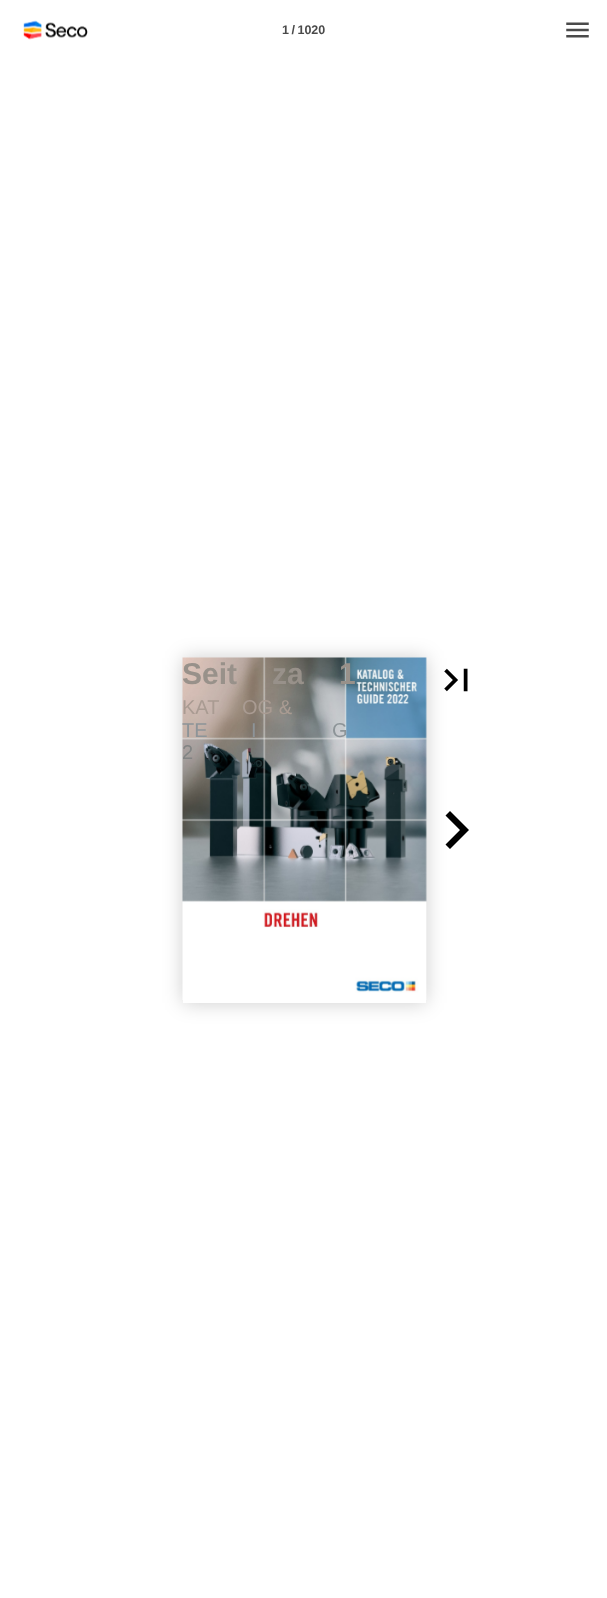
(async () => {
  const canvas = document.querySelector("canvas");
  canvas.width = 607;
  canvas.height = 1598;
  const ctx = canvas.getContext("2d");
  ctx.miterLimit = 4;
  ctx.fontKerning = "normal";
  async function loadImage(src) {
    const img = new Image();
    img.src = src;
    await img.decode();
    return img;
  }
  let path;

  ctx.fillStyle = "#ffffff";
  ctx.fillRect(0, 0, 607, 1598);
  ctx.drawImage(await loadImage("img/1.png"), 23, 20, 65, 20);
  ctx.drawImage(await loadImage("img/2.png"), 566, 22, 23, 16);
  ctx.fillStyle = "rgba(0, 0, 0, 0.2)";
  ctx.filter = "blur(10px)";
  ctx.beginPath();
  ctx.rect(183, 658, 243, 345);
  ctx.fill();
  ctx.filter = "none";
  ctx.fillStyle = "#ffffff";
  ctx.fillRect(183, 658, 243, 345);
  ctx.drawImage(await loadImage("img/3.png"), 182, 657, 245, 343);
  ctx.drawImage(await loadImage("img/4.png"), 444, 668, 24, 24);
  ctx.fillStyle = "#000000";
  path = new Path2D("M450 811L445.5 815.5L460 830L445.5 844.5L450 849L469 830Z");
  ctx.fill(path);
  ctx.font = "bold 12.5px Liberation Sans";
  ctx.fillStyle = "#4a4a4a";
  ctx.fillText("1 / 1020", 282, 34);
  ctx.font = "bold 30px Liberation Sans";
  ctx.fillStyle = "#98918a";
  for (const [text, x, y] of [
    ["Seit", 182, 684],
    ["za", 272, 684],
    ["1", 339, 684],
  ]) {
    ctx.fillText(text, x, y);
  }
  ctx.font = "20px Liberation Sans";
  ctx.fillStyle = "#a99b92";
  ctx.fillText("KAT", 182, 714);
  ctx.fillText("OG &", 242, 714);
  ctx.fillStyle = "#8d9498";
  for (const [text, x, y] of [
    ["TE", 182, 737],
    ["I", 251, 737],
    ["G", 332, 737],
  ]) {
    ctx.fillText(text, x, y);
  }
  ctx.fillStyle = "#828484";
  ctx.fillText("2", 182, 759);
})();
